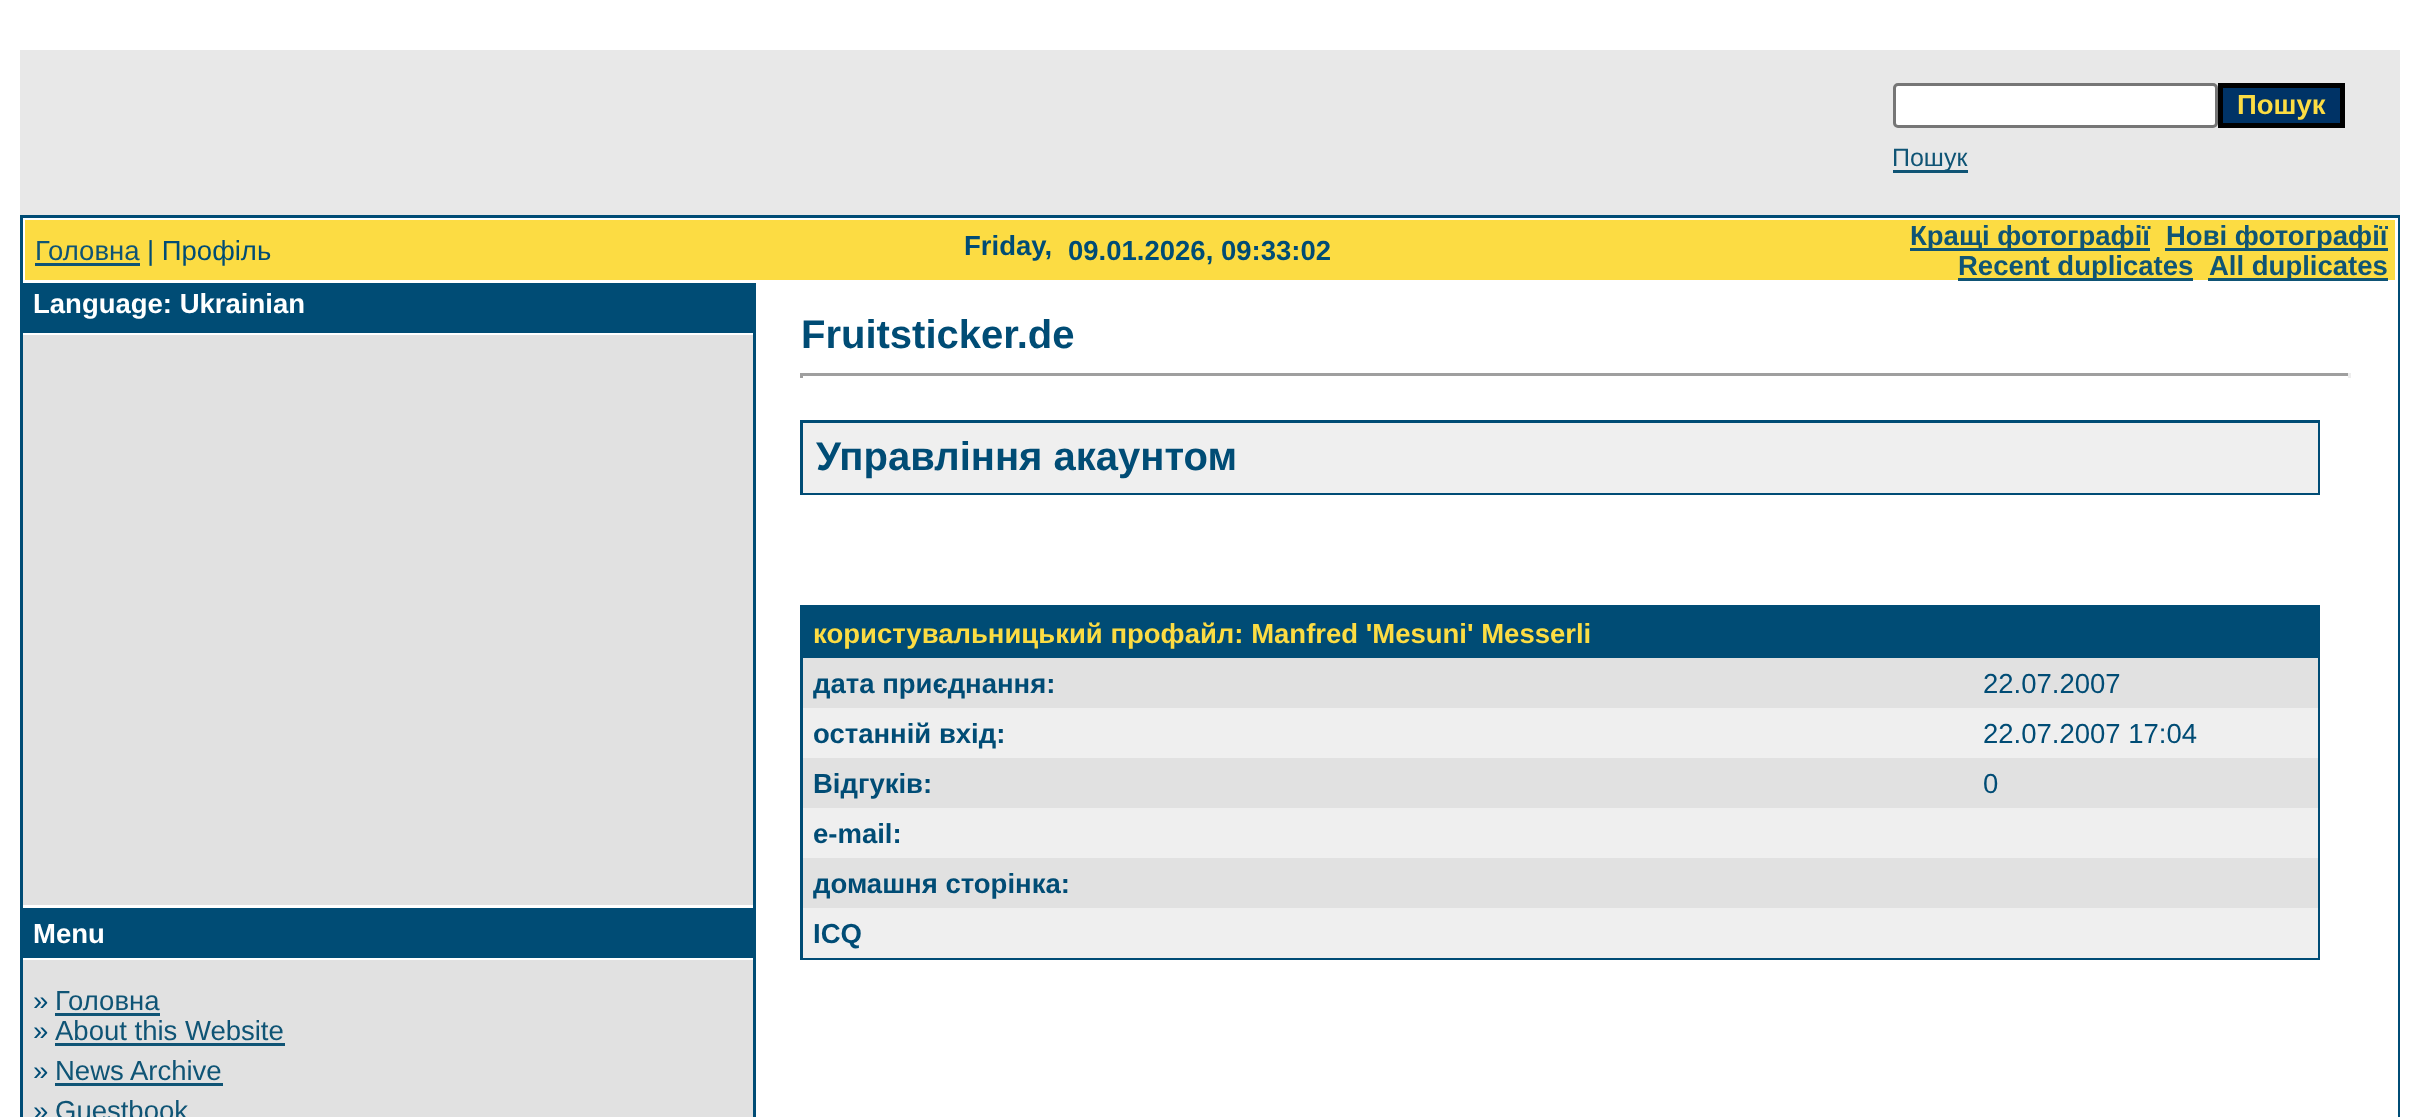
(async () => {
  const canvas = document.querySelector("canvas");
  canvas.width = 2418;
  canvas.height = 1117;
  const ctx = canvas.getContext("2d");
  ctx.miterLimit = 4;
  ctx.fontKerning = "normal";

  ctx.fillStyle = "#ffffff";
  ctx.fillRect(0, 0, 2418, 1117);
  ctx.fillStyle = "#e8e8e8";
  ctx.fillRect(20, 50, 2380, 165);
  ctx.fillStyle = "#ffffff";
  ctx.beginPath();
  ctx.roundRect(1894.5, 84.5, 322, 42, 3.5);
  ctx.fill();
  ctx.strokeStyle = "#767676";
  ctx.lineWidth = 3;
  ctx.stroke();
  ctx.fillStyle = "#003366";
  ctx.beginPath();
  ctx.rect(2220.5, 85.5, 122, 40);
  ctx.fill();
  ctx.strokeStyle = "#000000";
  ctx.lineWidth = 5;
  ctx.stroke();
  for (const [x, y, w, h, color] of [
    [1893, 170, 75, 3, "#0f5475"],
    [20, 215, 2380, 902, "#004c75"],
    [23, 218, 2375, 899, "#ffffff"],
    [25, 220, 2370, 60, "#fcdc43"],
    [35, 263, 105, 3, "#0f5475"],
    [1910, 248, 240, 3, "#0f5475"],
    [2165, 248, 223, 3, "#0f5475"],
    [1958, 278, 235, 3, "#0f5475"],
    [2208, 278, 180, 3, "#0f5475"],
    [23, 283, 730, 50, "#004c75"],
    [23, 335, 730, 570, "#e1e1e1"],
    [23, 908, 730, 50, "#004c75"],
    [23, 960, 730, 157, "#e1e1e1"],
    [55, 1013, 105, 3, "#0f5475"],
    [55, 1043, 230, 3, "#0f5475"],
    [55, 1083, 168, 3, "#0f5475"],
    [753, 283, 3, 834, "#004c75"],
    [800, 373, 1550, 3, "#9f9f9f"],
    [2348, 373, 3, 5, "#eeeeee"],
    [800, 373, 3, 5, "#9f9f9f"],
    [800, 420, 1520, 75, "#004c75"],
    [803, 423, 1515, 70, "#efefef"],
    [800, 605, 1520, 355, "#004c75"],
    [803, 658, 1515, 50, "#e1e1e1"],
    [803, 708, 1515, 50, "#efefef"],
    [803, 758, 1515, 50, "#e1e1e1"],
    [803, 808, 1515, 50, "#efefef"],
    [803, 858, 1515, 50, "#e1e1e1"],
    [803, 908, 1515, 50, "#efefef"],
  ]) {
    ctx.fillStyle = color;
    ctx.fillRect(x, y, w, h);
  }
  ctx.font = "bold 27.5px Liberation Sans";
  ctx.fillStyle = "#fcdc43";
  ctx.fillText("Пошук", 2237, 114);
  ctx.font = "25px Liberation Sans";
  ctx.fillStyle = "#0f5475";
  ctx.fillText("Пошук", 1892, 166);
  ctx.font = "27.5px Liberation Sans";
  ctx.fillText("Головна", 35, 260);
  ctx.fillStyle = "#004c75";
  ctx.fillText("| Профіль", 147, 260);
  ctx.font = "bold 27.5px Liberation Sans";
  ctx.fillText("Friday,", 964, 255);
  ctx.fillText("09.01.2026, 09:33:02", 1068, 260);
  ctx.fillStyle = "#0f5475";
  for (const [text, x, y] of [
    ["Кращі фотографії", 1910, 245],
    ["Нові фотографії", 2166, 245],
    ["Recent duplicates", 1958, 275],
    ["All duplicates", 2209, 275],
  ]) {
    ctx.fillText(text, x, y);
  }
  ctx.fillStyle = "#ffffff";
  ctx.fillText("Language: Ukrainian", 33, 313);
  ctx.fillText("Menu", 33, 943);
  ctx.font = "27.5px Liberation Sans";
  ctx.fillStyle = "#004c75";
  ctx.fillText("»", 33, 1010);
  ctx.fillStyle = "#0f5475";
  ctx.fillText("Головна", 55, 1010);
  ctx.fillStyle = "#004c75";
  ctx.fillText("»", 33, 1040);
  ctx.fillStyle = "#0f5475";
  ctx.fillText("About this Website", 55, 1040);
  ctx.fillStyle = "#004c75";
  ctx.fillText("»", 33, 1080);
  ctx.fillStyle = "#0f5475";
  ctx.fillText("News Archive", 55, 1080);
  ctx.fillStyle = "#004c75";
  ctx.fillText("»", 33, 1120);
  ctx.fillStyle = "#0f5475";
  ctx.fillText("Guestbook", 55, 1120);
  ctx.font = "bold 40px Liberation Sans";
  ctx.fillStyle = "#004c75";
  ctx.fillText("Fruitsticker.de", 801, 348);
  ctx.fillText("Управління акаунтом", 816, 470);
  ctx.font = "bold 27.5px Liberation Sans";
  ctx.fillStyle = "#fcdc43";
  ctx.fillText("користувальницький профайл: Manfred 'Mesuni' Messerli", 813, 643);
  ctx.fillStyle = "#004c75";
  ctx.fillText("дата приєднання:", 813, 693);
  ctx.font = "27.5px Liberation Sans";
  ctx.fillText("22.07.2007", 1983, 693);
  ctx.font = "bold 27.5px Liberation Sans";
  ctx.fillText("останній вхід:", 813, 743);
  ctx.font = "27.5px Liberation Sans";
  ctx.fillText("22.07.2007 17:04", 1983, 743);
  ctx.font = "bold 27.5px Liberation Sans";
  ctx.fillText("Відгуків:", 813, 793);
  ctx.font = "27.5px Liberation Sans";
  ctx.fillText("0", 1983, 793);
  ctx.font = "bold 27.5px Liberation Sans";
  for (const [text, x, y] of [
    ["e-mail:", 813, 843],
    ["домашня сторінка:", 813, 893],
    ["ICQ", 813, 943],
  ]) {
    ctx.fillText(text, x, y);
  }
})();
